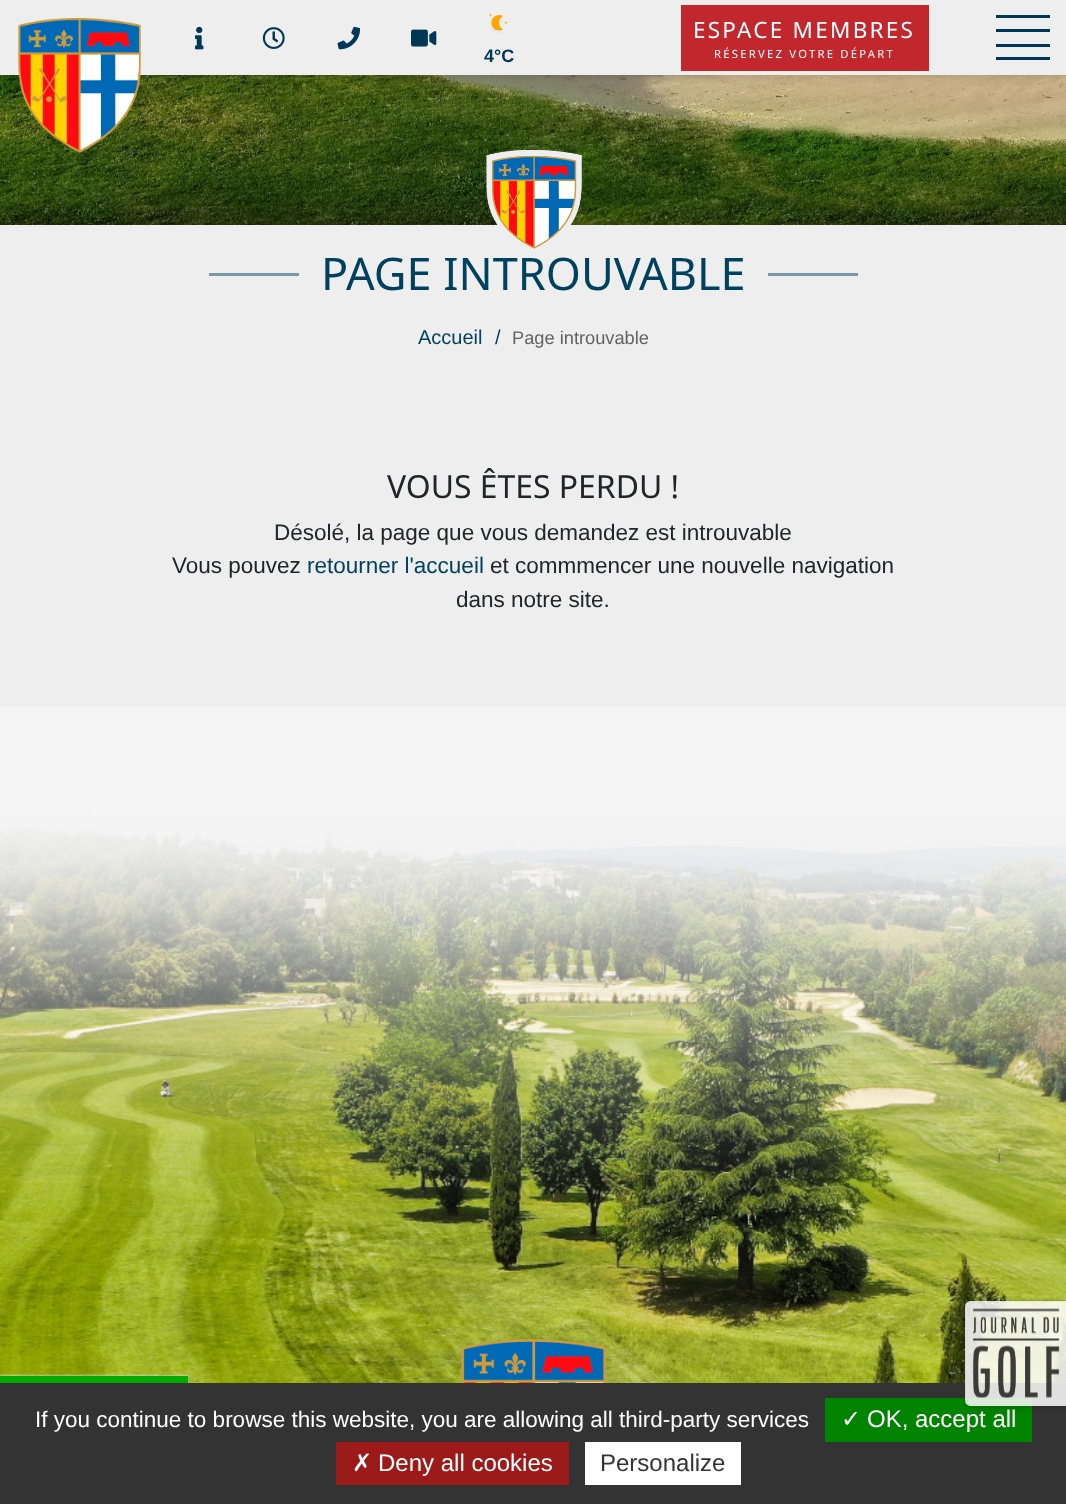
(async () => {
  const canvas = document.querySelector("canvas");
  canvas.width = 1066;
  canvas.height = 1504;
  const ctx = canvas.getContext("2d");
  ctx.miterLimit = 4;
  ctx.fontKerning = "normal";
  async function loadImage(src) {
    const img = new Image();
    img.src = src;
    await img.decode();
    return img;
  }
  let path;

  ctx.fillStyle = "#eeeeee";
  ctx.fillRect(0, 0, 1066, 1504);
  ctx.drawImage(await loadImage("img/7.png"), 0, 75, 1066, 150);
  ctx.fillStyle = "rgba(0, 0, 0, 0.2)";
  ctx.filter = "blur(6px)";
  ctx.beginPath();
  ctx.rect(0, 0, 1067, 75);
  ctx.fill();
  ctx.filter = "none";
  ctx.fillStyle = "#eeeeee";
  ctx.fillRect(0, 0, 1066, 75);
  ctx.drawImage(await loadImage("img/1.png"), 18, 18, 123, 135);
  ctx.drawImage(await loadImage("img/2.png"), 195, 26, 9, 24);
  ctx.drawImage(await loadImage("img/3.png"), 262, 27, 23, 22);
  ctx.drawImage(await loadImage("img/4.png"), 337, 26, 23, 24);
  ctx.drawImage(await loadImage("img/5.png"), 411, 29, 26, 18);
  ctx.drawImage(await loadImage("img/6.png"), 489, 13, 19, 20);
  for (const [x, y, w, h, color] of [
    [681, 5, 248, 66, "#c1272d"],
    [996, 15, 54, 3, "#003656"],
    [996, 29, 54, 3, "#003656"],
    [996, 44, 54, 3, "#003656"],
    [996, 57, 54, 3, "#003656"],
  ]) {
    ctx.fillStyle = color;
    ctx.fillRect(x, y, w, h);
  }
  ctx.drawImage(await loadImage("img/8.png"), 486, 150, 96, 99);
  ctx.fillStyle = "#7798a7";
  ctx.fillRect(209, 273, 90, 3);
  ctx.fillRect(768, 273, 90, 3);
  ctx.drawImage(await loadImage("img/9.png"), 0, 707, 1066, 676);
  ctx.drawImage(await loadImage("img/10.png"), 461, 1339, 145, 44);
  ctx.fillStyle = "#555555";
  ctx.filter = "blur(1.5px)";
  ctx.beginPath();
  ctx.rect(0, 1377, 188, 8);
  ctx.fill();
  ctx.filter = "none";
  ctx.fillStyle = "#ffffff";
  ctx.filter = "blur(1.5px)";
  ctx.beginPath();
  ctx.rect(0, 1376, 188, 7);
  ctx.fill();
  ctx.filter = "none";
  ctx.fillStyle = "#333333";
  ctx.fillRect(0, 1383, 1066, 121);
  ctx.fillStyle = "#008300";
  ctx.fillRect(825, 1398, 207, 44);
  ctx.save();
  path = new Path2D("M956 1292H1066V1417H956ZM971 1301H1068V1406H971C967.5 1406 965 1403.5 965 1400V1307C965 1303.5 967.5 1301 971 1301Z");
  ctx.clip(path, "evenodd");
  ctx.fillStyle = "rgba(0, 0, 0, 0.21)";
  ctx.filter = "blur(3px)";
  ctx.beginPath();
  ctx.roundRect(966, 1302, 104, 105, 6);
  ctx.fill();
  ctx.filter = "none";
  ctx.restore();
  ctx.fillStyle = "rgba(255, 255, 255, 0.85)";
  path = new Path2D("M971 1301H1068V1406H971C967.5 1406 965 1403.5 965 1400V1307C965 1303.5 967.5 1301 971 1301Z");
  ctx.fill(path);
  ctx.drawImage(await loadImage("img/11.png"), 965, 1300, 101, 105);
  for (const [x, y, w, h, color] of [
    [0, 1376, 188, 7, "#00aa00"],
    [336, 1442, 233, 43, "#9c1a1a"],
    [585, 1442, 156, 43, "#ffffff"],
  ]) {
    ctx.fillStyle = color;
    ctx.fillRect(x, y, w, h);
  }
  ctx.font = "bold 18px Liberation Sans";
  ctx.fillStyle = "#003656";
  ctx.fillText("4°C", 484, 62);
  ctx.letterSpacing = "2.25px";
  ctx.font = "22.5px Noto Sans";
  ctx.fillStyle = "#ffffff";
  ctx.fillText("ESPACE MEMBRES", 693, 38);
  ctx.font = "11.25px Noto Sans";
  ctx.fillText("RÉSERVEZ VOTRE DÉPART", 714, 58);
  ctx.letterSpacing = "0px";
  ctx.font = "45px Noto Sans";
  ctx.fillStyle = "#004160";
  ctx.fillText("PAGE INTROUVABLE", 321, 290);
  ctx.font = "20px Liberation Sans";
  ctx.fillText("Accueil", 418, 344);
  ctx.fillText("/", 495, 344);
  ctx.font = "18.25px Liberation Sans";
  ctx.fillStyle = "#626262";
  ctx.fillText("Page introuvable", 512, 344);
  ctx.font = "31.9px Noto Sans";
  ctx.fillStyle = "#212529";
  ctx.fillText("VOUS ÊTES PERDU !", 387, 498);
  ctx.font = "22.5px Liberation Sans";
  ctx.fillText("Désolé, la page que vous demandez est introuvable", 274, 540);
  ctx.fillText("Vous pouvez", 172, 573);
  ctx.fillStyle = "#004160";
  ctx.fillText("retourner l'accueil", 307, 573);
  ctx.fillStyle = "#212529";
  ctx.fillText("et commmencer une nouvelle navigation", 490, 573);
  ctx.fillText("dans notre site.", 456, 607);
  ctx.fillStyle = "#ffffff";
  ctx.fillText("If you continue to browse this website, you are allowing all third-party services", 35, 1427);
  ctx.font = "24px DejaVu Sans";
  ctx.fillText("✓", 841, 1427);
  ctx.font = "24px Liberation Sans";
  ctx.fillText("OK, accept all", 867, 1427);
  ctx.font = "24px DejaVu Sans";
  ctx.fillText("✗", 352, 1471);
  ctx.font = "24px Liberation Sans";
  ctx.fillText("Deny all cookies", 378, 1471);
  ctx.fillStyle = "#333333";
  ctx.fillText("Personalize", 600, 1471);
})();
